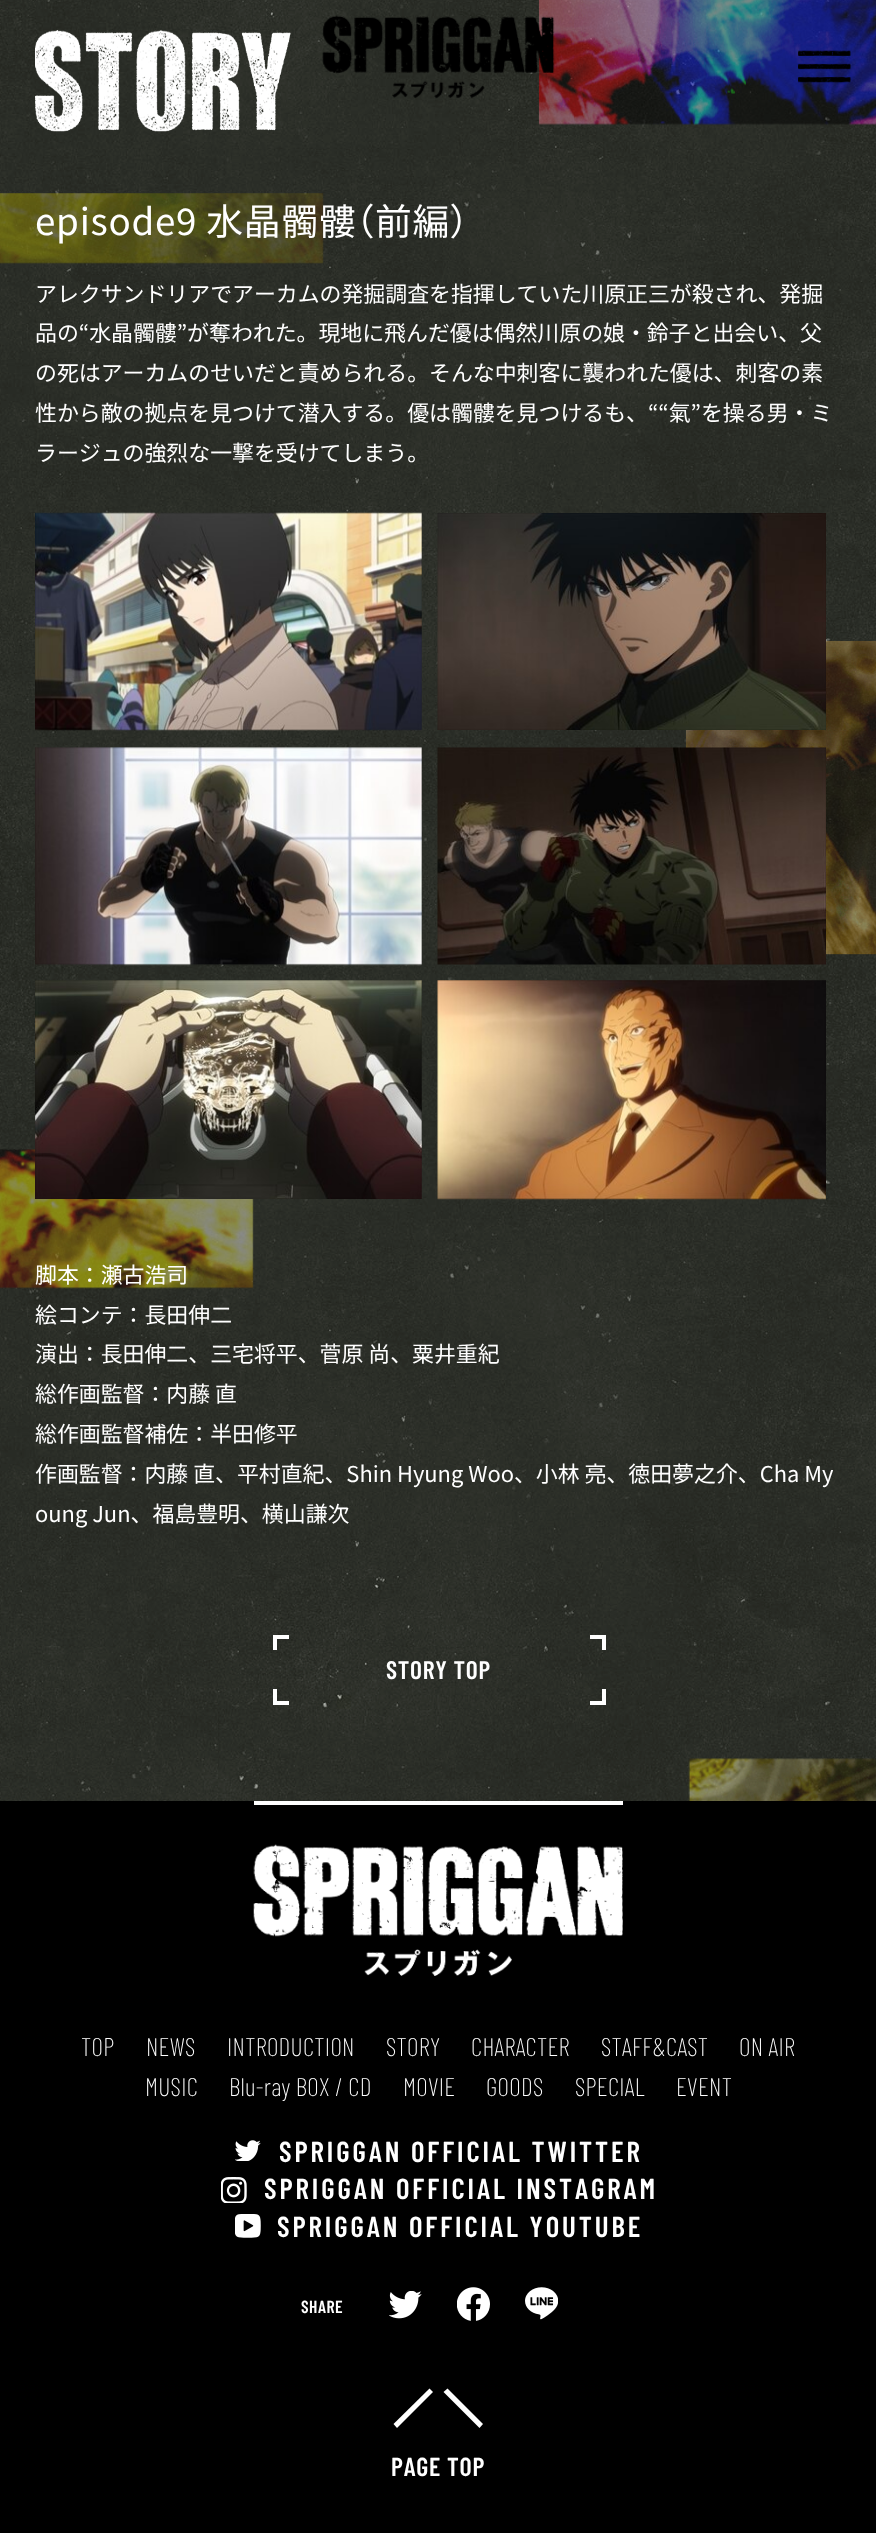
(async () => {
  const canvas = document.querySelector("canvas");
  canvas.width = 876;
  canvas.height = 2533;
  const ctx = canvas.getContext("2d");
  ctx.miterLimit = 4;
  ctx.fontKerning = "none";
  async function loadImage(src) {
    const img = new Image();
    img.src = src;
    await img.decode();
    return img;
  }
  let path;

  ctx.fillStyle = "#ffffff";
  ctx.fillRect(0, 0, 876, 2533);
  ctx.drawImage(await loadImage("img/1.png"), 0, 0, 876, 1801);
  ctx.drawImage(await loadImage("img/2.png"), 538, 0, 338, 125);
  ctx.drawImage(await loadImage("img/3.png"), 0, 193, 324, 71);
  ctx.drawImage(await loadImage("img/4.png"), 685, 640, 191, 315);
  ctx.drawImage(await loadImage("img/5.png"), 0, 1149, 254, 140);
  ctx.drawImage(await loadImage("img/6.png"), 688, 1758, 188, 43);
  ctx.drawImage(await loadImage("img/7.png"), 322, 15, 233, 84);
  ctx.drawImage(await loadImage("img/8.png"), 798, 50, 53, 33);
  ctx.drawImage(await loadImage("img/9.png"), 35, 30, 256, 102);
  ctx.drawImage(await loadImage("img/10.png"), 35, 512, 387, 219);
  ctx.drawImage(await loadImage("img/11.png"), 437, 513, 389, 217);
  ctx.drawImage(await loadImage("img/12.png"), 35, 747, 387, 219);
  ctx.drawImage(await loadImage("img/13.png"), 437, 747, 389, 218);
  ctx.drawImage(await loadImage("img/14.png"), 35, 980, 387, 219);
  ctx.drawImage(await loadImage("img/15.png"), 437, 980, 389, 220);
  for (const [x, y, w, h, color] of [
    [273, 1635, 16, 4, "#ffffff"],
    [273, 1635, 4, 15, "#ffffff"],
    [590, 1635, 16, 4, "#ffffff"],
    [602, 1635, 4, 15, "#ffffff"],
    [273, 1701, 16, 4, "#ffffff"],
    [273, 1689, 4, 16, "#ffffff"],
    [602, 1689, 4, 16, "#ffffff"],
    [590, 1701, 16, 4, "#ffffff"],
    [0, 1801, 876, 732, "#000000"],
    [254, 1801, 369, 4, "#ffffff"],
  ]) {
    ctx.fillStyle = color;
    ctx.fillRect(x, y, w, h);
  }
  ctx.drawImage(await loadImage("img/16.png"), 253, 1844, 370, 132);
  ctx.drawImage(await loadImage("img/17.png"), 235, 2140, 26, 21);
  ctx.drawImage(await loadImage("img/18.png"), 221, 2177, 26, 26);
  ctx.drawImage(await loadImage("img/19.png"), 235, 2214, 26, 24);
  ctx.drawImage(await loadImage("img/20.png"), 389, 2291, 33, 28);
  ctx.drawImage(await loadImage("img/21.png"), 457, 2287, 33, 34);
  ctx.drawImage(await loadImage("img/22.png"), 525, 2287, 33, 33);
  path = new Path2D("M429.5 2388.5L433 2392L397 2428L393.5 2424Z");
  ctx.fill(path);
  path = new Path2D("M443.5 2392L447.5 2388.5L483 2424L479.5 2428Z");
  ctx.fill(path);
  ctx.letterSpacing = "0.75px";
  ctx.font = "36.75px Noto Sans JP";
  ctx.fillText("episode9 水晶髑髏", 35, 235);
  ctx.font = "36.75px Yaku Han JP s";
  ctx.fillText("（", 356, 235);
  ctx.font = "36.75px Noto Sans JP";
  ctx.fillText("前編", 375, 235);
  ctx.font = "36.75px Yaku Han JP s";
  ctx.fillText("）", 450, 235);
  ctx.letterSpacing = "0px";
  ctx.font = "21.9px Noto Sans JP";
  for (const [text, x, y] of [
    ["アレクサンドリアでアーカムの発掘調査を指揮していた川原正三が殺され、発掘", 35, 302],
    ["品の“水晶髑髏”が奪われた。現地に飛んだ優は偶然川原の娘・鈴子と出会い、父", 35, 341],
    ["の死はアーカムのせいだと責められる。そんな中刺客に襲われた優は、刺客の素", 35, 381],
    ["性から敵の拠点を見つけて潜入する。優は髑髏を見つけるも、““氣”を操る男・ミ", 35, 421],
    ["ラージュの強烈な一撃を受けてしまう。", 35, 461],
    ["脚本：瀬古浩司", 35, 1283],
    ["絵コンテ：長田伸二", 35, 1323],
    ["演出：長田伸二、三宅将平、菅原 尚、粟井重紀", 35, 1362],
    ["総作画監督：内藤 直", 35, 1402],
    ["総作画監督補佐：半田修平", 35, 1442],
    ["作画監督：内藤 直、平村直紀、Shin Hyung Woo、小林 亮、徳田夢之介、Cha My", 35, 1482],
    ["oung Jun、福島豊明、横山謙次", 35, 1522],
  ]) {
    ctx.fillText(text, x, y);
  }
  ctx.letterSpacing = "0.75px";
  ctx.font = "600 25.5px Barlow Condensed";
  ctx.fillText("STORY TOP", 386, 1679);
  ctx.letterSpacing = "0.25px";
  ctx.font = "200 25.5px Barlow Condensed";
  for (const [text, x, y] of [
    ["TOP", 81, 2056],
    ["NEWS", 146, 2056],
    ["INTRODUCTION", 227, 2056],
    ["STORY", 386, 2056],
    ["CHARACTER", 471, 2056],
    ["STAFF&CAST", 601, 2056],
    ["ON AIR", 739, 2056],
    ["MUSIC", 145, 2096],
    ["Blu-ray BOX / CD", 229, 2096],
    ["MOVIE", 403, 2096],
    ["GOODS", 486, 2096],
    ["SPECIAL", 575, 2096],
    ["EVENT", 676, 2096],
  ]) {
    ctx.fillText(text, x, y);
  }
  ctx.letterSpacing = "2.9px";
  ctx.font = "600 28.9px Barlow Condensed";
  for (const [text, x, y] of [
    ["SPRIGGAN OFFICIAL TWITTER", 279, 2162],
    ["SPRIGGAN OFFICIAL INSTAGRAM", 264, 2199],
    ["SPRIGGAN OFFICIAL YOUTUBE", 277, 2237],
  ]) {
    ctx.fillText(text, x, y);
  }
  ctx.letterSpacing = "0.5px";
  ctx.font = "600 17.5px Barlow Condensed";
  ctx.fillText("SHARE", 301, 2313);
  ctx.letterSpacing = "0.75px";
  ctx.font = "600 26px Barlow Condensed";
  ctx.fillText("PAGE TOP", 391, 2476);
})();
